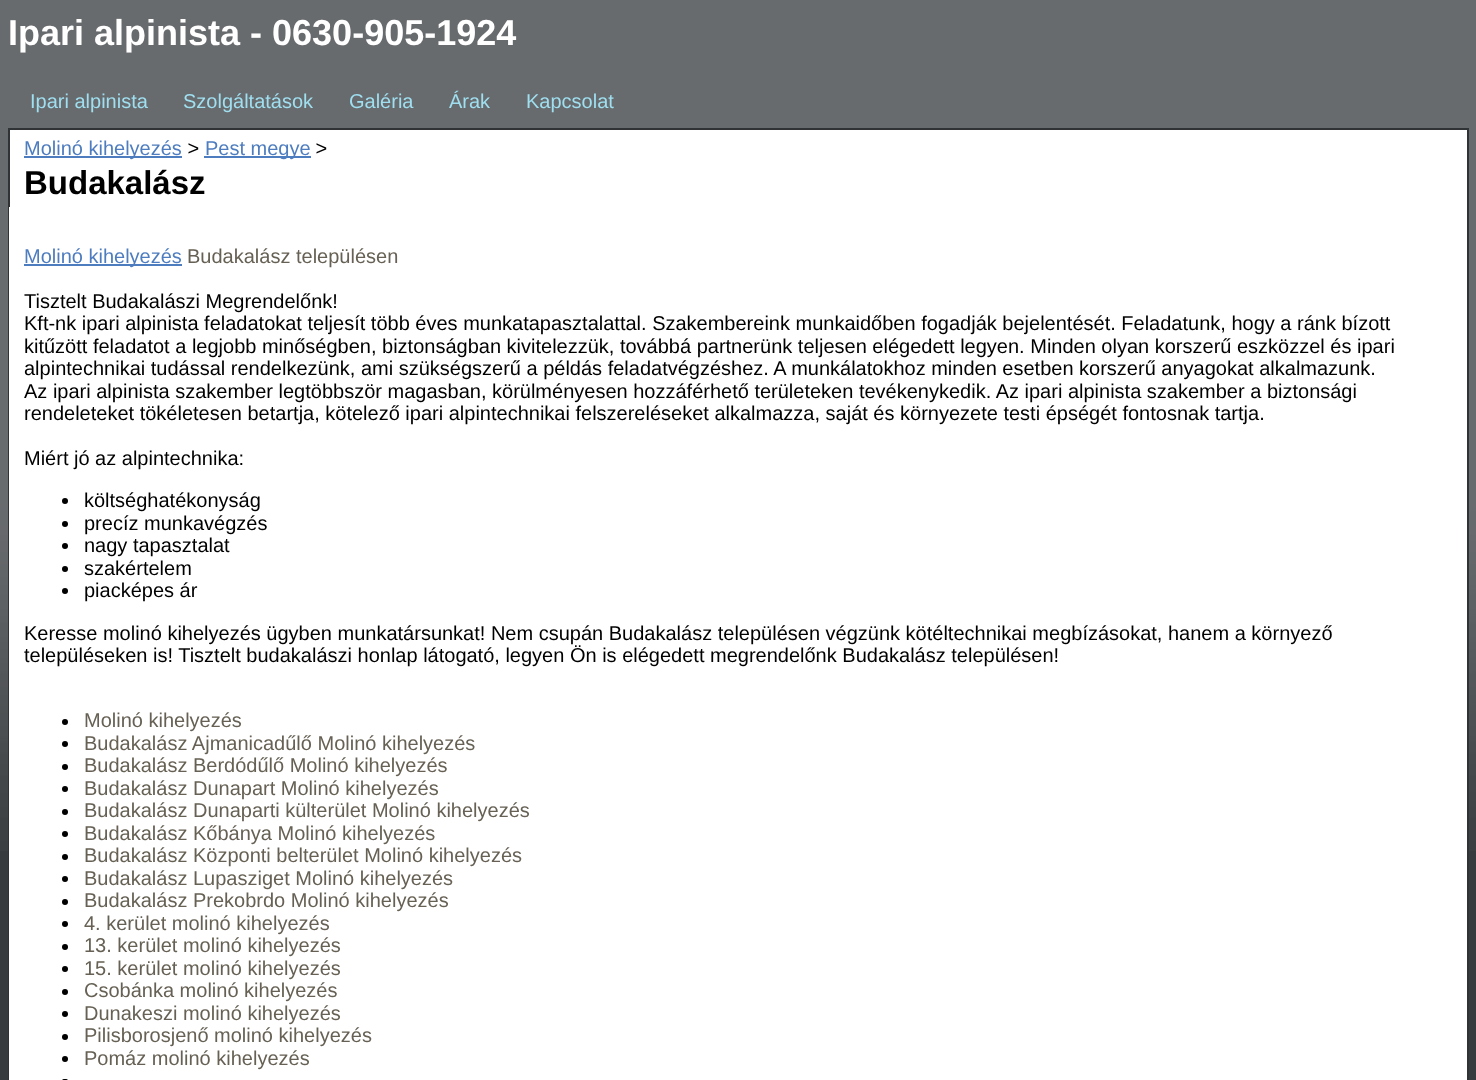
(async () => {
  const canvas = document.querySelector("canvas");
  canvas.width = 1476;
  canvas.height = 1080;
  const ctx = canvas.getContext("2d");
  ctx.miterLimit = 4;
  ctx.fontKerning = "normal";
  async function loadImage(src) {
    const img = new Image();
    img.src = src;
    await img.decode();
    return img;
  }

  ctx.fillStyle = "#373b3d";
  ctx.fillRect(0, 0, 1476, 1080);
  ctx.drawImage(await loadImage("img/1.png"), 0, 0, 1476, 851);
  ctx.fillStyle = "#ffffff";
  ctx.fillRect(10, 130, 1457, 77);
  ctx.strokeStyle = "#303336";
  ctx.lineWidth = 2;
  ctx.strokeRect(9, 129, 1459, 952);
  for (const [x, y, w, h, color] of [
    [24, 156, 158, 2, "#4e7dbf"],
    [204, 156, 107, 2, "#4e7dbf"],
    [9, 207, 1458, 873, "#ffffff"],
    [24, 264, 158, 2, "#4e7dbf"],
  ]) {
    ctx.fillStyle = color;
    ctx.fillRect(x, y, w, h);
  }
  ctx.fillStyle = "#000000";
  ctx.beginPath();
  ctx.arc(65, 501, 3, 0, Math.PI * 2);
  ctx.fill();
  ctx.beginPath();
  ctx.arc(65, 524, 3, 0, Math.PI * 2);
  ctx.fill();
  ctx.beginPath();
  ctx.arc(65, 546, 3, 0, Math.PI * 2);
  ctx.fill();
  ctx.beginPath();
  ctx.arc(65, 569, 3, 0, Math.PI * 2);
  ctx.fill();
  ctx.beginPath();
  ctx.arc(65, 591, 3, 0, Math.PI * 2);
  ctx.fill();
  ctx.beginPath();
  ctx.arc(65, 722, 3, 0, Math.PI * 2);
  ctx.fill();
  ctx.beginPath();
  ctx.arc(65, 744, 3, 0, Math.PI * 2);
  ctx.fill();
  ctx.beginPath();
  ctx.arc(65, 767, 3, 0, Math.PI * 2);
  ctx.fill();
  ctx.beginPath();
  ctx.arc(65, 789, 3, 0, Math.PI * 2);
  ctx.fill();
  ctx.beginPath();
  ctx.arc(65, 812, 3, 0, Math.PI * 2);
  ctx.fill();
  ctx.beginPath();
  ctx.arc(65, 834, 3, 0, Math.PI * 2);
  ctx.fill();
  ctx.beginPath();
  ctx.arc(65, 857, 3, 0, Math.PI * 2);
  ctx.fill();
  ctx.beginPath();
  ctx.arc(65, 879, 3, 0, Math.PI * 2);
  ctx.fill();
  ctx.beginPath();
  ctx.arc(65, 902, 3, 0, Math.PI * 2);
  ctx.fill();
  ctx.beginPath();
  ctx.arc(65, 924, 3, 0, Math.PI * 2);
  ctx.fill();
  ctx.beginPath();
  ctx.arc(65, 947, 3, 0, Math.PI * 2);
  ctx.fill();
  ctx.beginPath();
  ctx.arc(65, 969, 3, 0, Math.PI * 2);
  ctx.fill();
  ctx.beginPath();
  ctx.arc(65, 992, 3, 0, Math.PI * 2);
  ctx.fill();
  ctx.beginPath();
  ctx.arc(65, 1014, 3, 0, Math.PI * 2);
  ctx.fill();
  ctx.beginPath();
  ctx.arc(65, 1037, 3, 0, Math.PI * 2);
  ctx.fill();
  ctx.beginPath();
  ctx.arc(65, 1059, 3, 0, Math.PI * 2);
  ctx.fill();
  ctx.beginPath();
  ctx.roundRect(62, 1079, 6, 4, 3);
  ctx.fill();
  ctx.font = "bold 36px Liberation Sans";
  ctx.fillStyle = "#ffffff";
  ctx.fillText("Ipari alpinista - 0630-905-1924", 8, 45);
  ctx.font = "20px Liberation Sans";
  ctx.fillStyle = "#9fdff0";
  for (const [text, x, y] of [
    ["Ipari alpinista", 30, 108],
    ["Szolgáltatások", 183, 108],
    ["Galéria", 349, 108],
    ["Árak", 449, 108],
    ["Kapcsolat", 526, 108],
  ]) {
    ctx.fillText(text, x, y);
  }
  ctx.fillStyle = "#4e7dbf";
  ctx.fillText("Molinó kihelyezés", 24, 155);
  ctx.fillStyle = "#000000";
  ctx.fillText(" > ", 182, 155);
  ctx.fillStyle = "#4e7dbf";
  ctx.fillText("Pest megye", 205, 155);
  ctx.fillStyle = "#000000";
  ctx.fillText(" > ", 310, 155);
  ctx.font = "bold 33px Liberation Sans";
  ctx.fillText("Budakalász", 24, 194);
  ctx.font = "20px Liberation Sans";
  ctx.fillStyle = "#4e7dbf";
  ctx.fillText("Molinó kihelyezés", 24, 263);
  ctx.fillStyle = "#666154";
  ctx.fillText("Budakalász településen", 187, 263);
  ctx.fillStyle = "#000000";
  for (const [text, x, y] of [
    ["Tisztelt Budakalászi Megrendelőnk!", 24, 308],
    ["Kft-nk ipari alpinista feladatokat teljesít több éves munkatapasztalattal. Szakembereink munkaidőben fogadják bejelentését. Feladatunk, hogy a ránk bízott", 24, 330],
    ["kitűzött feladatot a legjobb minőségben, biztonságban kivitelezzük, továbbá partnerünk teljesen elégedett legyen. Minden olyan korszerű eszközzel és ipari", 24, 353],
    ["alpintechnikai tudással rendelkezünk, ami szükségszerű a példás feladatvégzéshez. A munkálatokhoz minden esetben korszerű anyagokat alkalmazunk.", 24, 375],
    ["Az ipari alpinista szakember legtöbbször magasban, körülményesen hozzáférhető területeken tevékenykedik. Az ipari alpinista szakember a biztonsági", 24, 398],
    ["rendeleteket tökéletesen betartja, kötelező ipari alpintechnikai felszereléseket alkalmazza, saját és környezete testi épségét fontosnak tartja.", 24, 420],
    ["Miért jó az alpintechnika:", 24, 465],
    ["költséghatékonyság", 84, 507],
    ["precíz munkavégzés", 84, 530],
    ["nagy tapasztalat", 84, 552],
    ["szakértelem", 84, 575],
    ["piacképes ár", 84, 597],
    ["Keresse molinó kihelyezés ügyben munkatársunkat! Nem csupán Budakalász településen végzünk kötéltechnikai megbízásokat, hanem a környező", 24, 640],
    ["településeken is! Tisztelt budakalászi honlap látogató, legyen Ön is elégedett megrendelőnk Budakalász településen!", 24, 662],
  ]) {
    ctx.fillText(text, x, y);
  }
  ctx.fillStyle = "#666154";
  for (const [text, x, y] of [
    ["Molinó kihelyezés", 84, 727],
    ["Budakalász Ajmanicadűlő Molinó kihelyezés", 84, 750],
    ["Budakalász Berdódűlő Molinó kihelyezés", 84, 772],
    ["Budakalász Dunapart Molinó kihelyezés", 84, 795],
    ["Budakalász Dunaparti külterület Molinó kihelyezés", 84, 817],
    ["Budakalász Kőbánya Molinó kihelyezés", 84, 840],
    ["Budakalász Központi belterület Molinó kihelyezés", 84, 862],
    ["Budakalász Lupasziget Molinó kihelyezés", 84, 885],
    ["Budakalász Prekobrdo Molinó kihelyezés", 84, 907],
    ["4. kerület molinó kihelyezés", 84, 930],
    ["13. kerület molinó kihelyezés", 84, 952],
    ["15. kerület molinó kihelyezés", 84, 975],
    ["Csobánka molinó kihelyezés", 84, 997],
    ["Dunakeszi molinó kihelyezés", 84, 1020],
    ["Pilisborosjenő molinó kihelyezés", 84, 1042],
    ["Pomáz molinó kihelyezés", 84, 1065],
  ]) {
    ctx.fillText(text, x, y);
  }
})();
